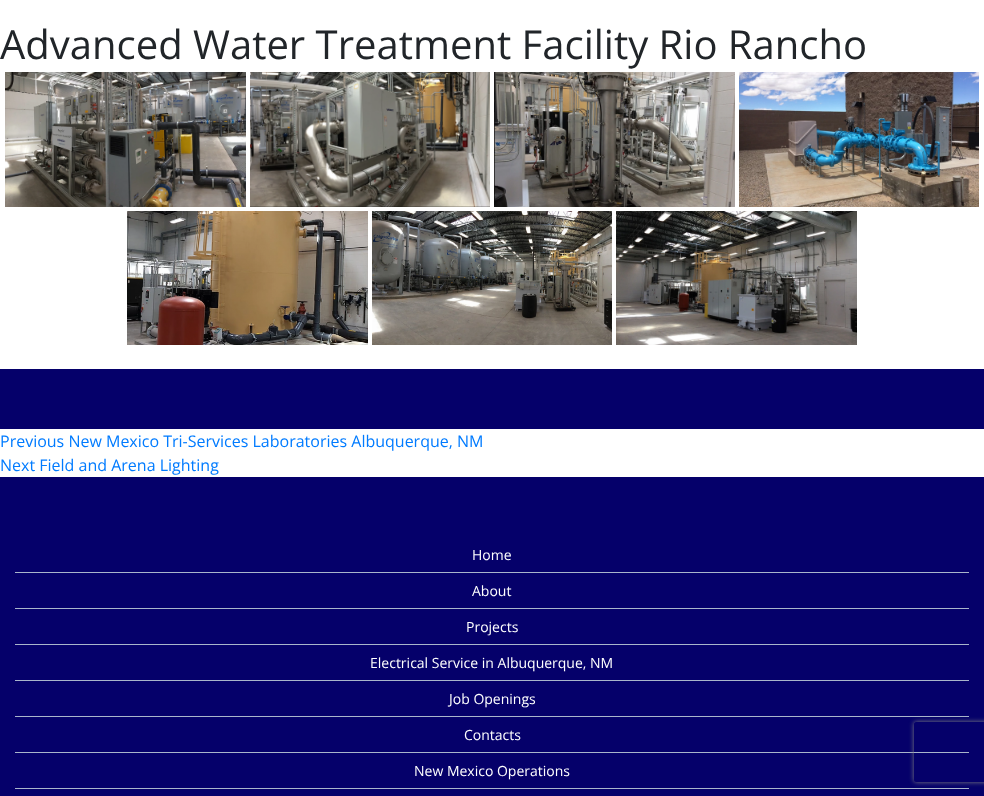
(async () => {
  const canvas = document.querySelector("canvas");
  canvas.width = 984;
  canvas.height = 796;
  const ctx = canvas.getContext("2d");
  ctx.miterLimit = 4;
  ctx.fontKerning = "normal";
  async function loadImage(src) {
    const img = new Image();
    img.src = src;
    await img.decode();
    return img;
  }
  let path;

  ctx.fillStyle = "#ffffff";
  ctx.fillRect(0, 0, 984, 796);
  ctx.drawImage(await loadImage("img/1.png"), 5, 72, 241, 135);
  ctx.drawImage(await loadImage("img/2.png"), 250, 72, 240, 135);
  ctx.drawImage(await loadImage("img/3.png"), 494, 72, 241, 135);
  ctx.drawImage(await loadImage("img/4.png"), 739, 72, 240, 135);
  ctx.drawImage(await loadImage("img/5.png"), 127, 211, 241, 134);
  ctx.drawImage(await loadImage("img/6.png"), 372, 211, 240, 134);
  ctx.drawImage(await loadImage("img/7.png"), 616, 211, 241, 134);
  for (const [x, y, w, h, color] of [
    [0, 369, 984, 60, "#05006a"],
    [0, 477, 984, 319, "#05006a"],
    [15, 572, 954, 1, "#a9b5cb"],
    [15, 608, 954, 1, "#a9b5cb"],
    [15, 644, 954, 1, "#a9b5cb"],
    [15, 680, 954, 1, "#a9b5cb"],
    [15, 716, 954, 1, "#a9b5cb"],
    [15, 752, 954, 1, "#a9b5cb"],
    [15, 788, 954, 1, "#a9b5cb"],
  ]) {
    ctx.fillStyle = color;
    ctx.fillRect(x, y, w, h);
  }
  ctx.save();
  path = new Path2D("M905 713H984V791H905ZM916 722H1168C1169 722 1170 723 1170 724V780C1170 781 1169 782 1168 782H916C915 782 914 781 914 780V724C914 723 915 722 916 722Z");
  ctx.clip(path, "evenodd");
  ctx.fillStyle = "#808080";
  ctx.filter = "blur(2.5px)";
  ctx.beginPath();
  ctx.roundRect(914, 722, 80, 60, 2);
  ctx.fill();
  ctx.filter = "none";
  ctx.restore();
  ctx.font = "40px Open Sans";
  ctx.fillStyle = "#212529";
  ctx.fillText("Advanced Water Treatment Facility Rio Rancho", 0, 59);
  ctx.font = "16px Open Sans";
  ctx.fillStyle = "#007bff";
  ctx.fillText("Previous New Mexico Tri-Services Laboratories Albuquerque, NM", 0, 447);
  ctx.fillText("Next Field and Arena Lighting", 0, 471);
  ctx.font = "14px Open Sans";
  ctx.fillStyle = "#ffffff";
  for (const [text, x, y] of [
    ["Home", 472, 560],
    ["About", 472, 596],
    ["Projects", 466, 632],
    ["Electrical Service in Albuquerque, NM", 370, 668],
    ["Job Openings", 449, 704],
    ["Contacts", 464, 740],
    ["New Mexico Operations", 414, 776],
  ]) {
    ctx.fillText(text, x, y);
  }
})();
